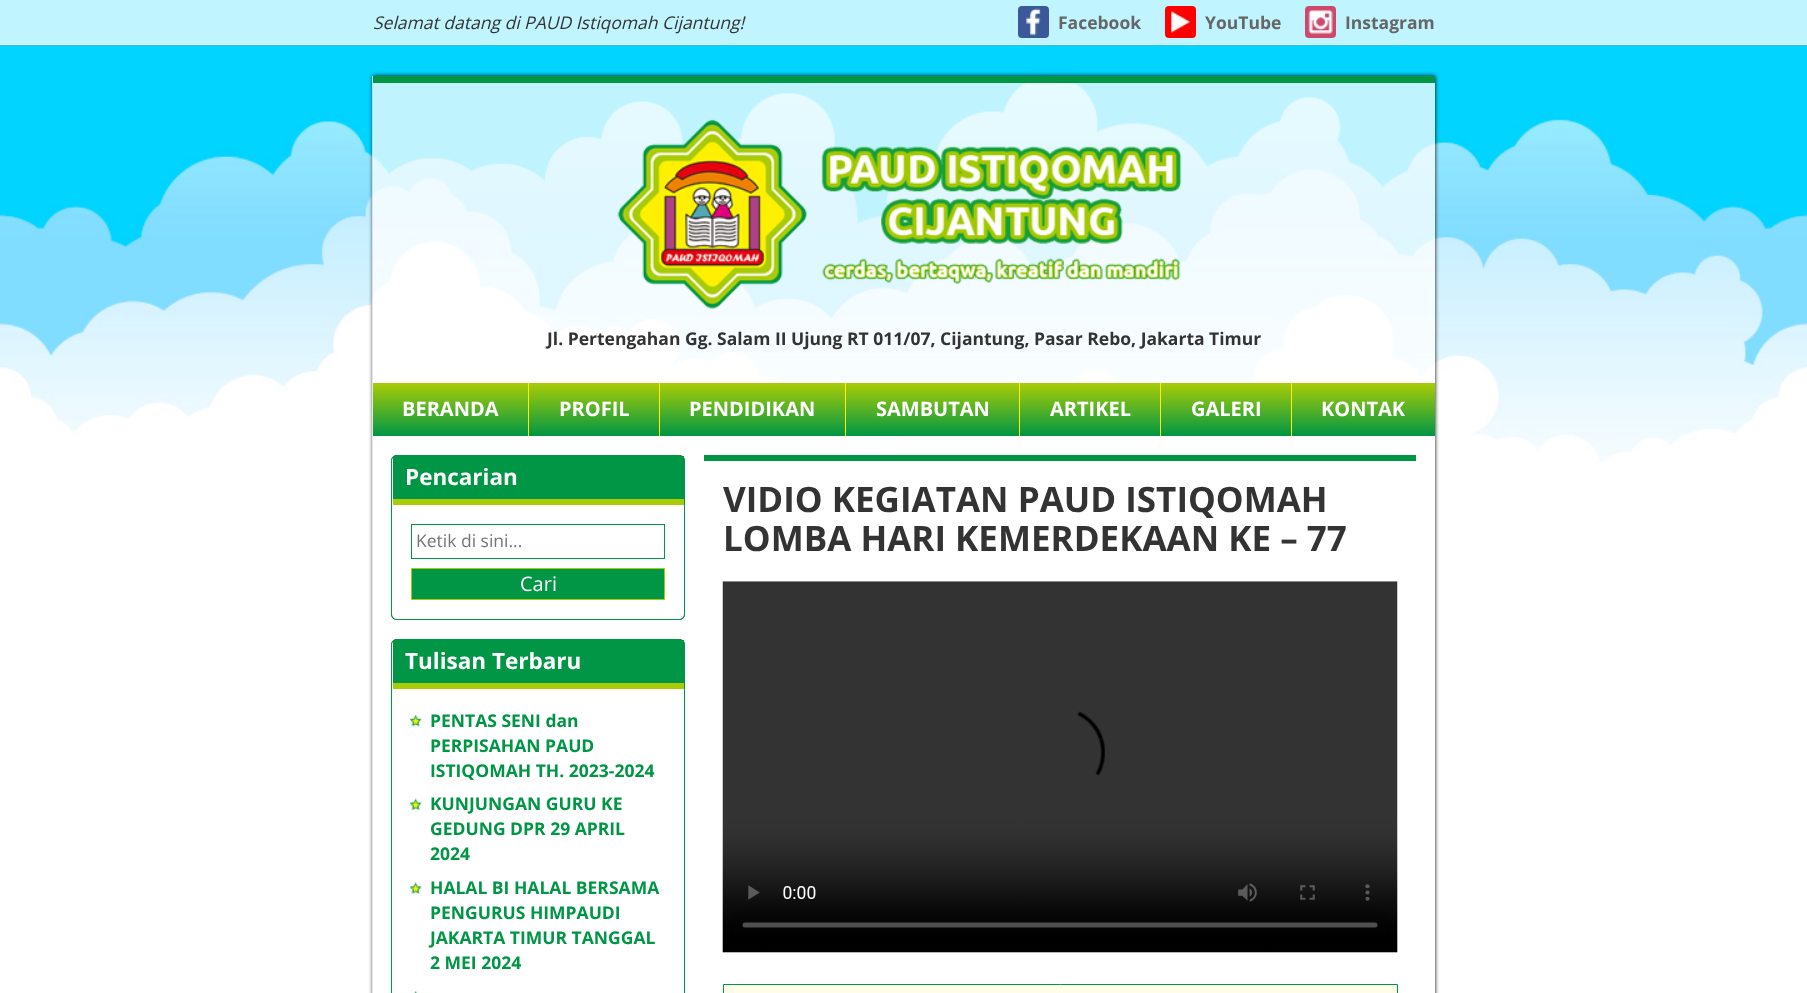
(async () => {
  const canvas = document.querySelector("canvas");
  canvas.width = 1807;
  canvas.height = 993;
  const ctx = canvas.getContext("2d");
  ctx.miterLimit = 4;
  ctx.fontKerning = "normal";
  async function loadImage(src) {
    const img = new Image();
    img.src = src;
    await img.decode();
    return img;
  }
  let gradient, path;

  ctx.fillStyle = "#ffffff";
  ctx.fillRect(0, 0, 1807, 993);
  ctx.drawImage(await loadImage("img/1.png"), 0, 45, 1807, 454);
  ctx.fillStyle = "#333333";
  ctx.filter = "blur(0.5px)";
  ctx.beginPath();
  ctx.rect(0, 0, 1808, 45);
  ctx.fill();
  ctx.filter = "none";
  ctx.fillStyle = "#c0f4ff";
  ctx.fillRect(0, 0, 1807, 44);
  ctx.fillStyle = "#ffffff";
  ctx.fillRect(0, 44, 1807, 1);
  ctx.fillStyle = "#3b5998";
  ctx.beginPath();
  ctx.roundRect(1018, 6, 31, 32, 4);
  ctx.fill();
  ctx.drawImage(await loadImage("img/2.png"), 1026, 8, 15, 28);
  ctx.fillStyle = "#ff0000";
  ctx.beginPath();
  ctx.roundRect(1165, 6, 31, 32, 4);
  ctx.fill();
  ctx.drawImage(await loadImage("img/3.png"), 1171, 11, 20, 22);
  ctx.fillStyle = "#cd486b";
  ctx.beginPath();
  ctx.roundRect(1305, 6, 31, 32, 4);
  ctx.fill();
  ctx.drawImage(await loadImage("img/4.png"), 1308, 9, 25, 25);
  ctx.save();
  path = new Path2D("M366 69H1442V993H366ZM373 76H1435V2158H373Z");
  ctx.clip(path, "evenodd");
  ctx.fillStyle = "#000000";
  ctx.filter = "blur(2px)";
  ctx.beginPath();
  ctx.rect(373, 76, 1062, 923);
  ctx.fill();
  ctx.filter = "none";
  ctx.restore();
  ctx.fillStyle = "rgba(255, 255, 255, 0.75)";
  ctx.fillRect(372, 76, 1063, 917);
  ctx.fillStyle = "#009645";
  ctx.fillRect(373, 76, 1062, 7);
  ctx.drawImage(await loadImage("img/5.png"), 617, 119, 565, 190);
  gradient = ctx.createLinearGradient(450, 383, 450, 436);
  gradient.addColorStop(0, "#aacc06");
  gradient.addColorStop(1, "#009645");
  ctx.fillStyle = gradient;
  ctx.fillRect(373, 383, 155, 53);
  ctx.fillStyle = "#fff001";
  ctx.fillRect(528, 383, 1, 53);
  gradient = ctx.createLinearGradient(594, 383, 594, 436);
  gradient.addColorStop(0, "#aacc06");
  gradient.addColorStop(1, "#009645");
  ctx.fillStyle = gradient;
  ctx.fillRect(529, 383, 130, 53);
  ctx.fillStyle = "#fff001";
  ctx.fillRect(659, 383, 1, 53);
  gradient = ctx.createLinearGradient(753, 383, 753, 436);
  gradient.addColorStop(0, "#aacc06");
  gradient.addColorStop(1, "#009645");
  ctx.fillStyle = gradient;
  ctx.fillRect(660, 383, 185, 53);
  ctx.fillStyle = "#fff001";
  ctx.fillRect(845, 383, 1, 53);
  gradient = ctx.createLinearGradient(933, 383, 933, 436);
  gradient.addColorStop(0, "#aacc06");
  gradient.addColorStop(1, "#009645");
  ctx.fillStyle = gradient;
  ctx.fillRect(846, 383, 173, 53);
  ctx.fillStyle = "#fff001";
  ctx.fillRect(1019, 383, 1, 53);
  gradient = ctx.createLinearGradient(1090, 383, 1090, 436);
  gradient.addColorStop(0, "#aacc06");
  gradient.addColorStop(1, "#009645");
  ctx.fillStyle = gradient;
  ctx.fillRect(1020, 383, 140, 53);
  ctx.fillStyle = "#fff001";
  ctx.fillRect(1160, 383, 1, 53);
  gradient = ctx.createLinearGradient(1226, 383, 1226, 436);
  gradient.addColorStop(0, "#aacc06");
  gradient.addColorStop(1, "#009645");
  ctx.fillStyle = gradient;
  ctx.fillRect(1161, 383, 132, 53);
  ctx.fillStyle = "#fff001";
  ctx.fillRect(1291, 383, 1, 53);
  gradient = ctx.createLinearGradient(1364, 383, 1364, 436);
  gradient.addColorStop(0, "#aacc06");
  gradient.addColorStop(1, "#009645");
  ctx.fillStyle = gradient;
  ctx.fillRect(1293, 383, 142, 53);
  ctx.fillStyle = "#000000";
  ctx.filter = "blur(0.5px)";
  ctx.beginPath();
  ctx.roundRect(391, 455, 294, 165, 6);
  ctx.fill();
  ctx.filter = "none";
  ctx.fillStyle = "#ffffff";
  ctx.beginPath();
  ctx.roundRect(391.5, 455.5, 293, 164, 5.5);
  ctx.fill();
  ctx.strokeStyle = "#009645";
  ctx.stroke();
  ctx.fillStyle = "#009645";
  ctx.fillRect(393, 456, 291, 43);
  ctx.fillStyle = "#aacc06";
  ctx.fillRect(393, 499, 291, 6);
  ctx.strokeRect(411.5, 524.5, 253, 34);
  ctx.fillStyle = "#009645";
  ctx.beginPath();
  ctx.rect(411.5, 568.5, 253, 31);
  ctx.fill();
  ctx.strokeStyle = "#aacc06";
  ctx.stroke();
  ctx.fillStyle = "#000000";
  ctx.filter = "blur(0.5px)";
  ctx.beginPath();
  ctx.roundRect(391, 639, 294, 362, 6);
  ctx.fill();
  ctx.filter = "none";
  ctx.fillStyle = "#ffffff";
  ctx.beginPath();
  ctx.roundRect(391.5, 639.5, 293, 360, 5.5);
  ctx.fill();
  ctx.strokeStyle = "#009645";
  ctx.stroke();
  ctx.fillStyle = "#009645";
  ctx.fillRect(393, 640, 291, 43);
  ctx.fillStyle = "#aacc06";
  ctx.fillRect(393, 683, 291, 6);
  ctx.drawImage(await loadImage("img/6.png"), 410, 715, 12, 12);
  ctx.drawImage(await loadImage("img/7.png"), 410, 798, 12, 12);
  ctx.drawImage(await loadImage("img/8.png"), 410, 882, 12, 12);
  ctx.drawImage(await loadImage("img/9.png"), 413, 991, 5, 2);
  ctx.fillStyle = "#000000";
  ctx.filter = "blur(0.5px)";
  ctx.beginPath();
  ctx.rect(704, 455, 712, 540);
  ctx.fill();
  ctx.filter = "none";
  ctx.fillStyle = "#ffffff";
  ctx.fillRect(704, 461, 712, 532);
  ctx.fillStyle = "#009645";
  ctx.fillRect(704, 455, 712, 6);
  ctx.drawImage(await loadImage("img/10.png"), 722, 581, 676, 372);
  ctx.fillStyle = "#fffce8";
  ctx.beginPath();
  ctx.rect(723.5, 984.5, 674, 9);
  ctx.fill();
  ctx.stroke();
  ctx.font = "italic 17.5px Open Sans";
  ctx.fillStyle = "#333333";
  ctx.fillText("Selamat datang di PAUD Istiqomah Cijantung!", 373, 29);
  ctx.font = "bold 17.5px Open Sans";
  ctx.fillStyle = "#666666";
  for (const [text, x, y] of [
    ["Facebook", 1058, 29],
    ["YouTube", 1205, 29],
    ["Instagram", 1345, 29],
  ]) {
    ctx.fillText(text, x, y);
  }
  ctx.fillStyle = "#333333";
  ctx.fillText("Jl. Pertengahan Gg. Salam II Ujung RT 011/07, Cijantung, Pasar Rebo, Jakarta Timur", 547, 345);
  ctx.font = "bold 20px Open Sans";
  ctx.fillStyle = "#ffffff";
  for (const [text, x, y] of [
    ["BERANDA", 402, 416],
    ["PROFIL", 559, 416],
    ["PENDIDIKAN", 689, 416],
    ["SAMBUTAN", 876, 416],
    ["ARTIKEL", 1050, 416],
    ["GALERI", 1191, 416],
    ["KONTAK", 1321, 416],
  ]) {
    ctx.fillText(text, x, y);
  }
  ctx.font = "bold 22.5px Open Sans";
  ctx.fillText("Pencarian", 405, 485);
  ctx.font = "17.5px Open Sans";
  ctx.fillStyle = "#757575";
  ctx.fillText("Ketik di sini...", 416, 547);
  ctx.font = "20px Open Sans";
  ctx.fillStyle = "#ffffff";
  ctx.fillText("Cari", 520, 591);
  ctx.font = "bold 22.5px Open Sans";
  ctx.fillText("Tulisan Terbaru", 405, 669);
  ctx.font = "bold 17.5px Open Sans";
  ctx.fillStyle = "#009645";
  for (const [text, x, y] of [
    ["PENTAS SENI dan", 430, 727],
    ["PERPISAHAN PAUD", 430, 752],
    ["ISTIQOMAH TH. 2023-2024", 430, 777],
    ["KUNJUNGAN GURU KE", 430, 810],
    ["GEDUNG DPR 29 APRIL", 430, 835],
    ["2024", 430, 860],
    ["HALAL BI HALAL BERSAMA", 430, 894],
    ["PENGURUS HIMPAUDI", 430, 919],
    ["JAKARTA TIMUR TANGGAL", 430, 944],
    ["2 MEI 2024", 430, 969],
  ]) {
    ctx.fillText(text, x, y);
  }
  ctx.font = "bold 35px Open Sans";
  ctx.fillStyle = "#333333";
  ctx.fillText("VIDIO KEGIATAN PAUD ISTIQOMAH", 723, 512);
  ctx.fillText("LOMBA HARI KEMERDEKAAN KE – 77", 723, 551);
})();
